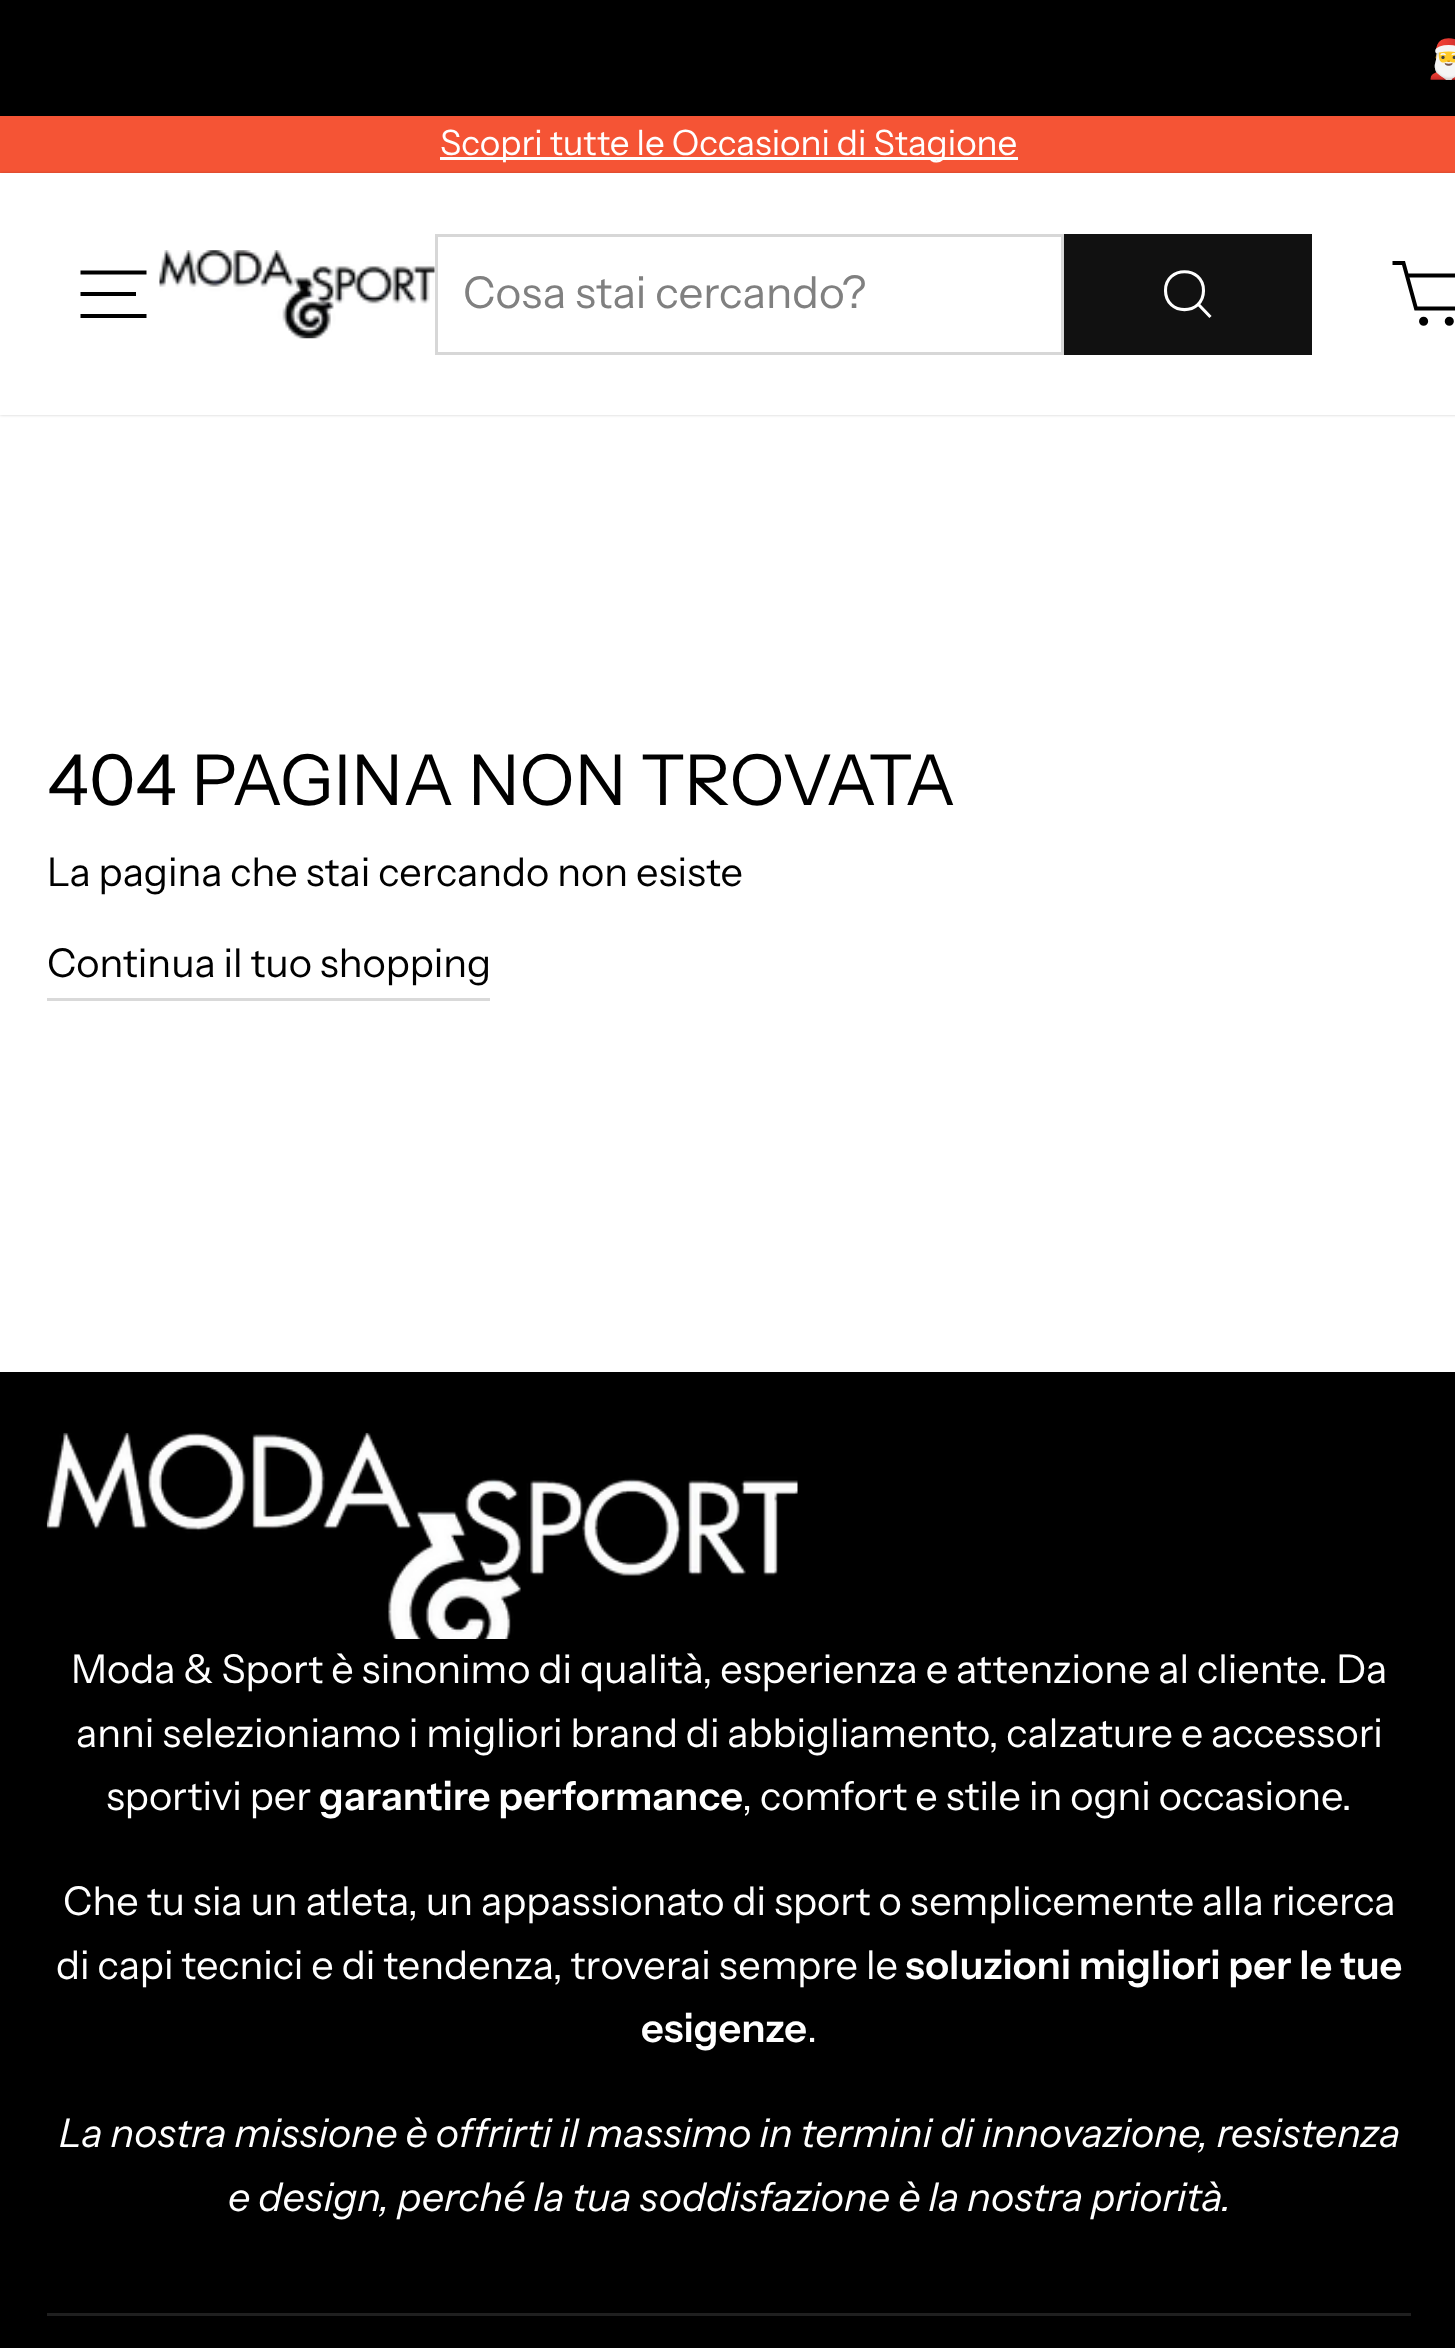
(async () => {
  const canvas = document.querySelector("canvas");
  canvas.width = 1455;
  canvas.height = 2348;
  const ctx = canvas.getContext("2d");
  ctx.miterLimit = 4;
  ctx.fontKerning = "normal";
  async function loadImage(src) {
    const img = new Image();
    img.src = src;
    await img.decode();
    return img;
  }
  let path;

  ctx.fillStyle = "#ffffff";
  ctx.fillRect(0, 0, 1455, 2348);
  for (const [x, y, w, h, color] of [
    [0, 0, 1455, 116, "#000000"],
    [0, 116, 1455, 57, "#f55435"],
    [440, 157, 578, 3, "#ffffff"],
  ]) {
    ctx.fillStyle = color;
    ctx.fillRect(x, y, w, h);
  }
  ctx.fillStyle = "rgba(0, 0, 0, 0.2)";
  ctx.filter = "blur(1.5px)";
  ctx.beginPath();
  ctx.rect(0, 173, 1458, 242);
  ctx.fill();
  ctx.filter = "none";
  ctx.fillStyle = "#ffffff";
  ctx.fillRect(0, 173, 1455, 242);
  path = new Path2D("M80.5 272.5H146.5M80.5 294H136M80.5 316H146.5");
  ctx.strokeStyle = "#000000";
  ctx.lineWidth = 3.9;
  ctx.stroke(path);
  ctx.drawImage(await loadImage("img/1.png"), 159, 250, 276, 89);
  ctx.strokeStyle = "#d7d7d7";
  ctx.lineWidth = 3;
  ctx.strokeRect(436.5, 235.5, 626, 118);
  ctx.fillStyle = "#111111";
  ctx.fillRect(1064, 234, 248, 121);
  path = new Path2D("M1203.5 290.5C1203.5 316 1165.5 316 1165.5 290.5C1165.5 265.5 1203.5 265.5 1203.5 290.5ZM1210.5 317L1198.5 304.5");
  ctx.strokeStyle = "#ffffff";
  ctx.lineWidth = 3.1;
  ctx.stroke(path);
  path = new Path2D("M1407 275.5H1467L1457 308.5H1416L1403.5 263H1392.5");
  ctx.strokeStyle = "#000000";
  ctx.lineWidth = 3.9;
  ctx.stroke(path);
  ctx.fillStyle = "#000000";
  ctx.beginPath();
  ctx.arc(1423.6, 321.3, 2.6, 0, Math.PI * 2);
  ctx.fill();
  ctx.stroke();
  ctx.beginPath();
  ctx.arc(1449.3, 321.3, 2.6, 0, Math.PI * 2);
  ctx.fill();
  ctx.stroke();
  ctx.fillStyle = "#d9d9d9";
  ctx.fillRect(47, 998, 443, 3);
  ctx.fillStyle = "#000000";
  ctx.fillRect(0, 1372, 1455, 976);
  ctx.drawImage(await loadImage("img/2.png"), 46, 1432, 752, 207);
  ctx.fillStyle = "#1f1f1f";
  ctx.fillRect(47, 2313, 1364, 3);
  ctx.font = "38px Noto Color Emoji";
  ctx.fillStyle = "#ebede2";
  ctx.fillText("🎅", 1425, 72);
  ctx.font = "35px Instrument Sans";
  ctx.fillStyle = "#ffffff";
  ctx.fillText("Scopri tutte le Occasioni di Stagione", 440, 155);
  ctx.font = "44px Instrument Sans";
  ctx.fillStyle = "#808080";
  ctx.fillText("Cosa stai cercando?", 463, 308);
  ctx.font = "70.1px Instrument Sans";
  ctx.fillStyle = "#000000";
  ctx.fillText("404 PAGINA NON TROVATA", 47, 805);
  ctx.font = "39.75px Instrument Sans";
  ctx.fillText("La pagina che stai cercando non esiste", 47, 886);
  ctx.fillText("Continua il tuo shopping", 47, 977);
  ctx.fillStyle = "#ffffff";
  ctx.fillText("Moda & Sport è sinonimo di qualità, esperienza e attenzione al cliente. Da", 71, 1683);
  ctx.wordSpacing = "-0.1px";
  ctx.fillText("anni selezioniamo i migliori brand di abbigliamento, calzature e accessori", 76, 1747);
  ctx.wordSpacing = "0px";
  ctx.fillText("sportivi per", 106, 1810);
  ctx.font = "600 39.75px Instrument Sans";
  ctx.fillText("garantire performance", 319, 1810);
  ctx.font = "39.75px Instrument Sans";
  for (const [text, x, y] of [
    [", comfort e stile in ogni occasione.", 742, 1810],
    ["Che tu sia un atleta, un appassionato di sport o semplicemente alla ricerca", 63, 1915],
    ["di capi tecnici e di tendenza, troverai sempre le", 56, 1979],
  ]) {
    ctx.fillText(text, x, y);
  }
  ctx.font = "600 39.75px Instrument Sans";
  ctx.fillText("soluzioni migliori per le tue", 905, 1979);
  ctx.fillText("esigenze", 641, 2042);
  ctx.font = "39.75px Instrument Sans";
  ctx.fillText(".", 807, 2042);
  ctx.font = "italic 39.75px Instrument Sans";
  ctx.fillText("La nostra missione è offrirti il massimo in termini di innovazione, resistenza", 59, 2147);
  ctx.fillText("e design, perché la tua soddisfazione è la nostra priorità.", 228, 2211);
})();
